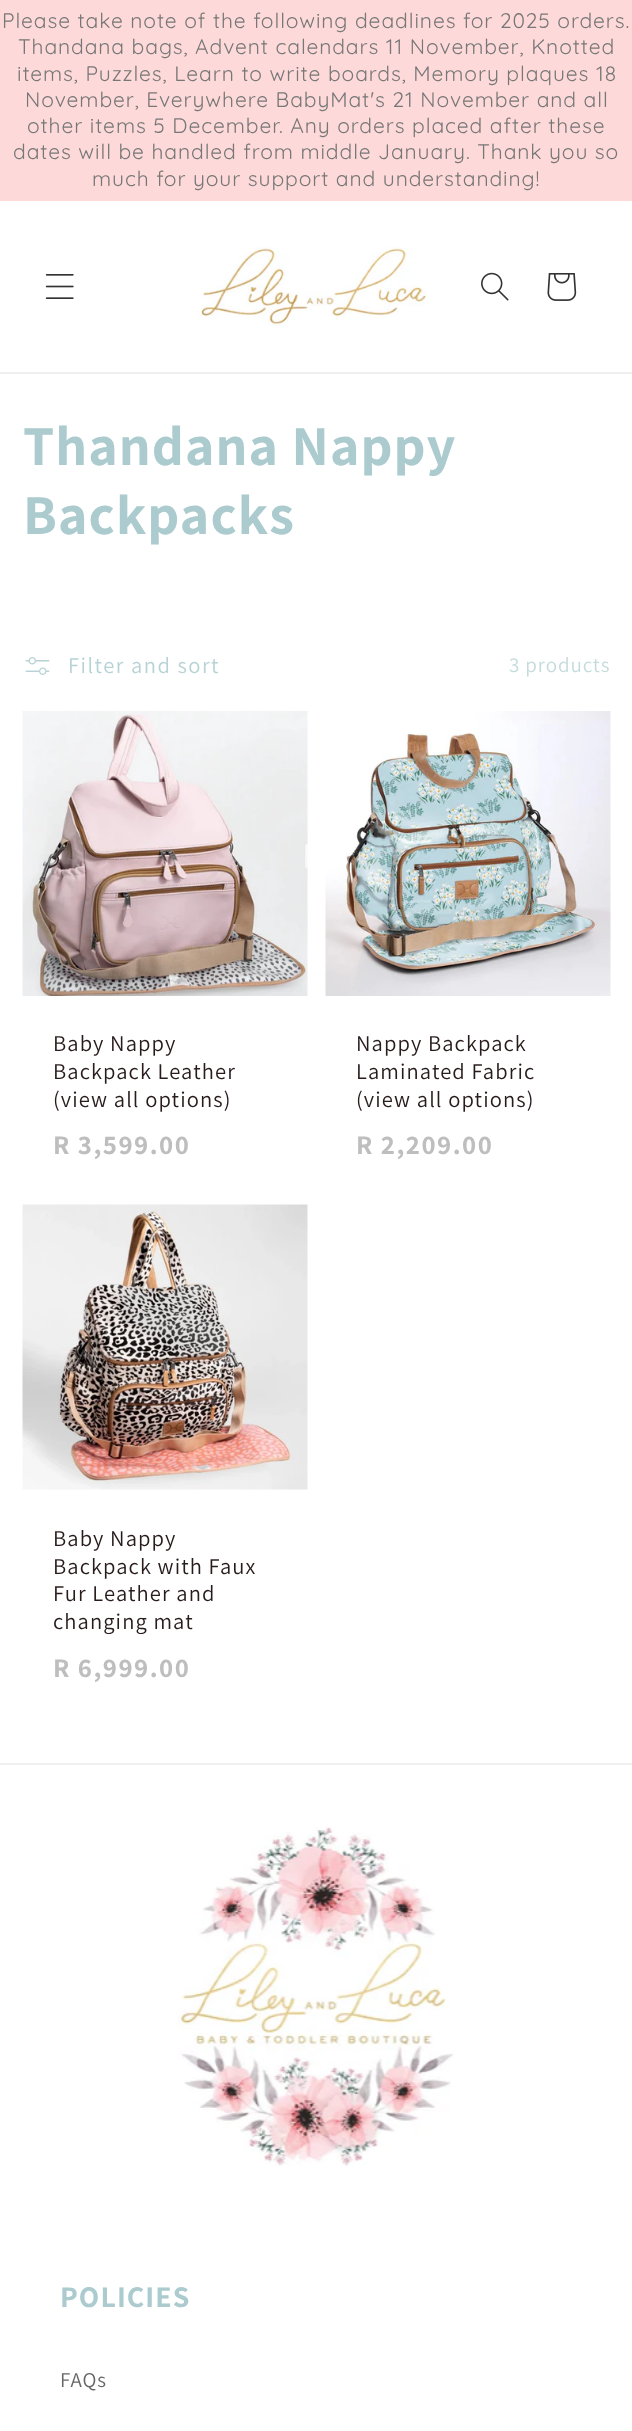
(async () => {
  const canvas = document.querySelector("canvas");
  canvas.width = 632;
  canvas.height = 2431;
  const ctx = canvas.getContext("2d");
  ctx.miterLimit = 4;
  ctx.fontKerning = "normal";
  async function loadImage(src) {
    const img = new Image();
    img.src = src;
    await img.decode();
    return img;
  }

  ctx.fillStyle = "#ffffff";
  ctx.fillRect(0, 0, 632, 2431);
  ctx.fillStyle = "#fed9d9";
  ctx.fillRect(0, 0, 632, 201);
  ctx.fillStyle = "#efefef";
  ctx.fillRect(0, 372, 632, 2);
  ctx.drawImage(await loadImage("img/1.png"), 45, 274, 29, 25);
  ctx.drawImage(await loadImage("img/2.png"), 199, 247, 228, 79);
  ctx.drawImage(await loadImage("img/3.png"), 481, 272, 28, 29);
  ctx.drawImage(await loadImage("img/4.png"), 547, 273, 30, 28);
  ctx.drawImage(await loadImage("img/5.png"), 25, 657, 25, 18);
  ctx.drawImage(await loadImage("img/6.png"), 22, 711, 286, 285);
  ctx.drawImage(await loadImage("img/7.png"), 325, 711, 286, 285);
  ctx.drawImage(await loadImage("img/8.png"), 22, 1204, 286, 286);
  ctx.fillRect(0, 1763, 632, 2);
  ctx.drawImage(await loadImage("img/9.png"), 178, 1827, 275, 339);
  ctx.letterSpacing = "0.9px";
  ctx.font = "300 21px Quicksand";
  ctx.fillStyle = "#777777";
  for (const [text, x, y] of [
    ["Please take note of the following deadlines for 2025 orders.", 2, 28],
    ["Thandana bags, Advent calendars 11 November, Knotted", 18, 54],
    ["items, Puzzles, Learn to write boards, Memory plaques 18", 17, 81],
    ["November, Everywhere BabyMat's 21 November and all", 25, 107],
    ["other items 5 December. Any orders placed after these", 27, 133],
    ["dates will be handled from middle January. Thank you so", 13, 159],
    ["much for your support and understanding!", 92, 186],
  ]) {
    ctx.fillText(text, x, y);
  }
  ctx.letterSpacing = "1.1px";
  ctx.font = "bold 56.25px Assistant";
  ctx.fillStyle = "#abcbce";
  ctx.fillText("Thandana Nappy", 23, 465);
  ctx.fillText("Backpacks", 23, 534);
  ctx.letterSpacing = "1.5px";
  ctx.font = "22.5px Assistant";
  ctx.fillStyle = "#b8d3d5";
  ctx.fillText("Filter and sort", 68, 673);
  ctx.letterSpacing = "0.9px";
  ctx.font = "21px Assistant";
  ctx.fillStyle = "#c4dbdd";
  ctx.fillText("3 products", 509, 672);
  ctx.letterSpacing = "1.1px";
  ctx.font = "22.5px Assistant";
  ctx.fillStyle = "#281b1b";
  for (const [text, x, y] of [
    ["Baby Nappy", 53, 1051],
    ["Backpack Leather", 53, 1079],
    ["(view all options)", 53, 1107],
  ]) {
    ctx.fillText(text, x, y);
  }
  ctx.letterSpacing = "1.5px";
  ctx.font = "bold 27px Assistant";
  ctx.fillStyle = "#bebebe";
  ctx.fillText("R 3,599.00", 53, 1154);
  ctx.letterSpacing = "1.1px";
  ctx.font = "22.5px Assistant";
  ctx.fillStyle = "#281b1b";
  for (const [text, x, y] of [
    ["Nappy Backpack", 356, 1051],
    ["Laminated Fabric", 356, 1079],
    ["(view all options)", 356, 1107],
  ]) {
    ctx.fillText(text, x, y);
  }
  ctx.letterSpacing = "1.5px";
  ctx.font = "bold 27px Assistant";
  ctx.fillStyle = "#bebebe";
  ctx.fillText("R 2,209.00", 356, 1154);
  ctx.letterSpacing = "1.1px";
  ctx.font = "22.5px Assistant";
  ctx.fillStyle = "#281b1b";
  for (const [text, x, y] of [
    ["Baby Nappy", 53, 1546],
    ["Backpack with Faux", 53, 1574],
    ["Fur Leather and", 53, 1601],
    ["changing mat", 53, 1629],
  ]) {
    ctx.fillText(text, x, y);
  }
  ctx.letterSpacing = "1.5px";
  ctx.font = "bold 27px Assistant";
  ctx.fillStyle = "#bebebe";
  ctx.fillText("R 6,999.00", 53, 1677);
  ctx.letterSpacing = "1.1px";
  ctx.font = "bold 30px Assistant";
  ctx.fillStyle = "#abcbce";
  ctx.fillText("POLICIES", 60, 2307);
  ctx.letterSpacing = "0.9px";
  ctx.font = "21px Assistant";
  ctx.fillStyle = "#666666";
  ctx.fillText("FAQs", 60, 2387);
})();
